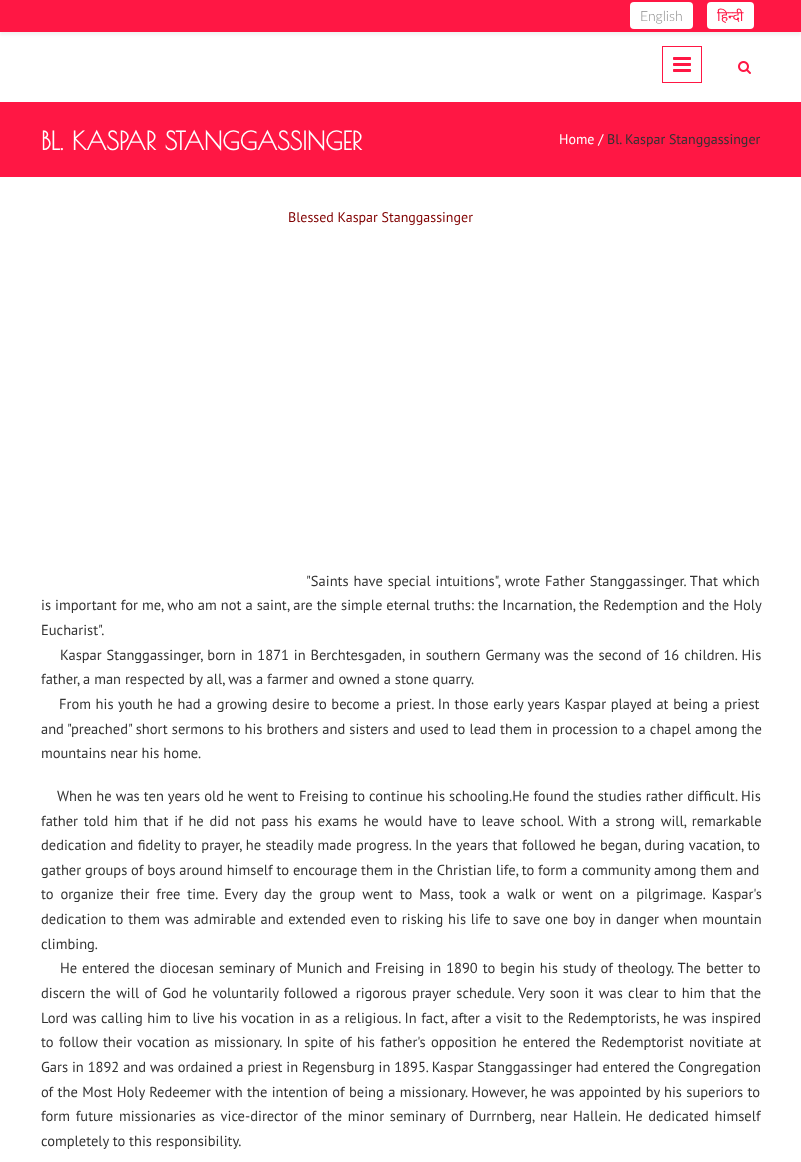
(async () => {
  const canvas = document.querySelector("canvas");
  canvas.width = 801;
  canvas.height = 1162;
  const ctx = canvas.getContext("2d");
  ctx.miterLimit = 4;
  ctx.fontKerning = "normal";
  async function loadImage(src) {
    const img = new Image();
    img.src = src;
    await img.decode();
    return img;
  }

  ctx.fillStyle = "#ffffff";
  ctx.fillRect(0, 0, 801, 1162);
  ctx.fillStyle = "rgba(0, 0, 0, 0.05)";
  ctx.filter = "blur(1.5px)";
  ctx.beginPath();
  ctx.rect(0, 3, 801, 32);
  ctx.fill();
  ctx.filter = "none";
  ctx.fillStyle = "#ff1744";
  ctx.fillRect(0, 0, 801, 32);
  ctx.fillStyle = "#ffffff";
  ctx.beginPath();
  ctx.roundRect(630, 2, 63, 27, 4);
  ctx.fill();
  ctx.beginPath();
  ctx.roundRect(707, 2, 47, 27, 4);
  ctx.fill();
  ctx.strokeStyle = "#ff1744";
  ctx.strokeRect(662.5, 46.5, 39, 36);
  ctx.drawImage(await loadImage("img/1.png"), 673, 57, 18, 15);
  ctx.drawImage(await loadImage("img/2.png"), 738, 61, 13, 13);
  ctx.fillStyle = "#ff1744";
  ctx.fillRect(0, 102, 801, 75);
  ctx.font = "300 14px Lato";
  ctx.fillStyle = "#8c8c8c";
  ctx.fillText("English", 640, 21);
  ctx.font = "14px Noto Sans";
  ctx.fillStyle = "#ff1744";
  ctx.fillText("हिन्दी", 717, 21);
  ctx.font = "bold 25px Poiret One";
  ctx.fillStyle = "#ffffff";
  ctx.fillText("BL. KASPAR STANGGASSINGER", 41, 150);
  ctx.font = "14px PT Sans";
  ctx.fillText("Home /", 559, 144);
  ctx.fillStyle = "#333333";
  ctx.fillText("Bl. Kaspar Stanggassinger", 607, 144);
  ctx.fillStyle = "#800000";
  ctx.fillText("Blessed Kaspar Stanggassinger", 288, 222);
  ctx.wordSpacing = "1px";
  ctx.font = "14.5px PT Sans";
  ctx.fillStyle = "#333333";
  ctx.fillText("\"Saints have special intuitions\", wrote Father Stanggassinger. That which", 306, 586);
  ctx.wordSpacing = "0.2px";
  ctx.fillText("is important for me, who am not a saint, are the simple eternal truths: the Incarnation, the Redemption and the Holy", 41, 610);
  ctx.wordSpacing = "0px";
  ctx.fillText("Eucharist\".", 41, 635);
  ctx.wordSpacing = "1px";
  ctx.fillText("Kaspar Stanggassinger, born in 1871 in Berchtesgaden, in southern Germany was the second of 16 children. His", 60, 660);
  ctx.wordSpacing = "0px";
  ctx.fillText("father, a man respected by all, was a farmer and owned a stone quarry.", 41, 684);
  ctx.wordSpacing = "0.75px";
  ctx.fillText("From his youth he had a growing desire to become a priest. In those early years Kaspar played at being a priest", 59, 709);
  ctx.wordSpacing = "0.2px";
  ctx.fillText("and \"preached\" short sermons to his brothers and sisters and used to lead them in procession to a chapel among the", 41, 734);
  ctx.wordSpacing = "0px";
  ctx.fillText("mountains near his home.", 41, 758);
  ctx.wordSpacing = "0.25px";
  ctx.fillText("When he was ten years old he went to Freising to continue his schooling.He found the studies rather difficult. His", 57, 801);
  ctx.wordSpacing = "1.9px";
  ctx.fillText("father told him that if he did not pass his exams he would have to leave school. With a strong will, remarkable", 41, 826);
  ctx.wordSpacing = "0.5px";
  ctx.fillText("dedication and fidelity to prayer, he steadily made progress. In the years that followed he began, during vacation, to", 41, 850);
  ctx.wordSpacing = "0px";
  ctx.fillText("gather groups of boys around himself to encourage them in the Christian life, to form a community among them and", 41, 875);
  ctx.wordSpacing = "3px";
  ctx.fillText("to organize their free time. Every day the group went to Mass, took a walk or went on a pilgrimage. Kaspar's", 41, 899);
  ctx.wordSpacing = "0.9px";
  ctx.fillText("dedication to them was admirable and extended even to risking his life to save one boy in danger when mountain", 41, 924);
  ctx.wordSpacing = "0px";
  ctx.fillText("climbing.", 41, 949);
  ctx.wordSpacing = "1.1px";
  ctx.fillText("He entered the diocesan seminary of Munich and Freising in 1890 to begin his study of theology. The better to", 60, 973);
  ctx.wordSpacing = "1.5px";
  ctx.fillText("discern the will of God he voluntarily followed a rigorous prayer schedule. Very soon it was clear to him that the", 41, 998);
  ctx.wordSpacing = "0.6px";
  ctx.fillText("Lord was calling him to live his vocation in as a religious. In fact, after a visit to the Redemptorists, he was inspired", 41, 1023);
  ctx.wordSpacing = "1.5px";
  ctx.fillText("to follow their vocation as missionary. In spite of his father's opposition he entered the Redemptorist novitiate at", 41, 1047);
  ctx.wordSpacing = "0px";
  ctx.fillText("Gars in 1892 and was ordained a priest in Regensburg in 1895. Kaspar Stanggassinger had entered the Congregation", 41, 1072);
  ctx.wordSpacing = "0.5px";
  ctx.fillText("of the Most Holy Redeemer with the intention of being a missionary. However, he was appointed by his superiors to", 41, 1097);
  ctx.wordSpacing = "1.9px";
  ctx.fillText("form future missionaries as vice-director of the minor seminary of Durrnberg, near Hallein. He dedicated himself", 41, 1121);
  ctx.wordSpacing = "0px";
  ctx.fillText("completely to this responsibility.", 41, 1146);
})();
